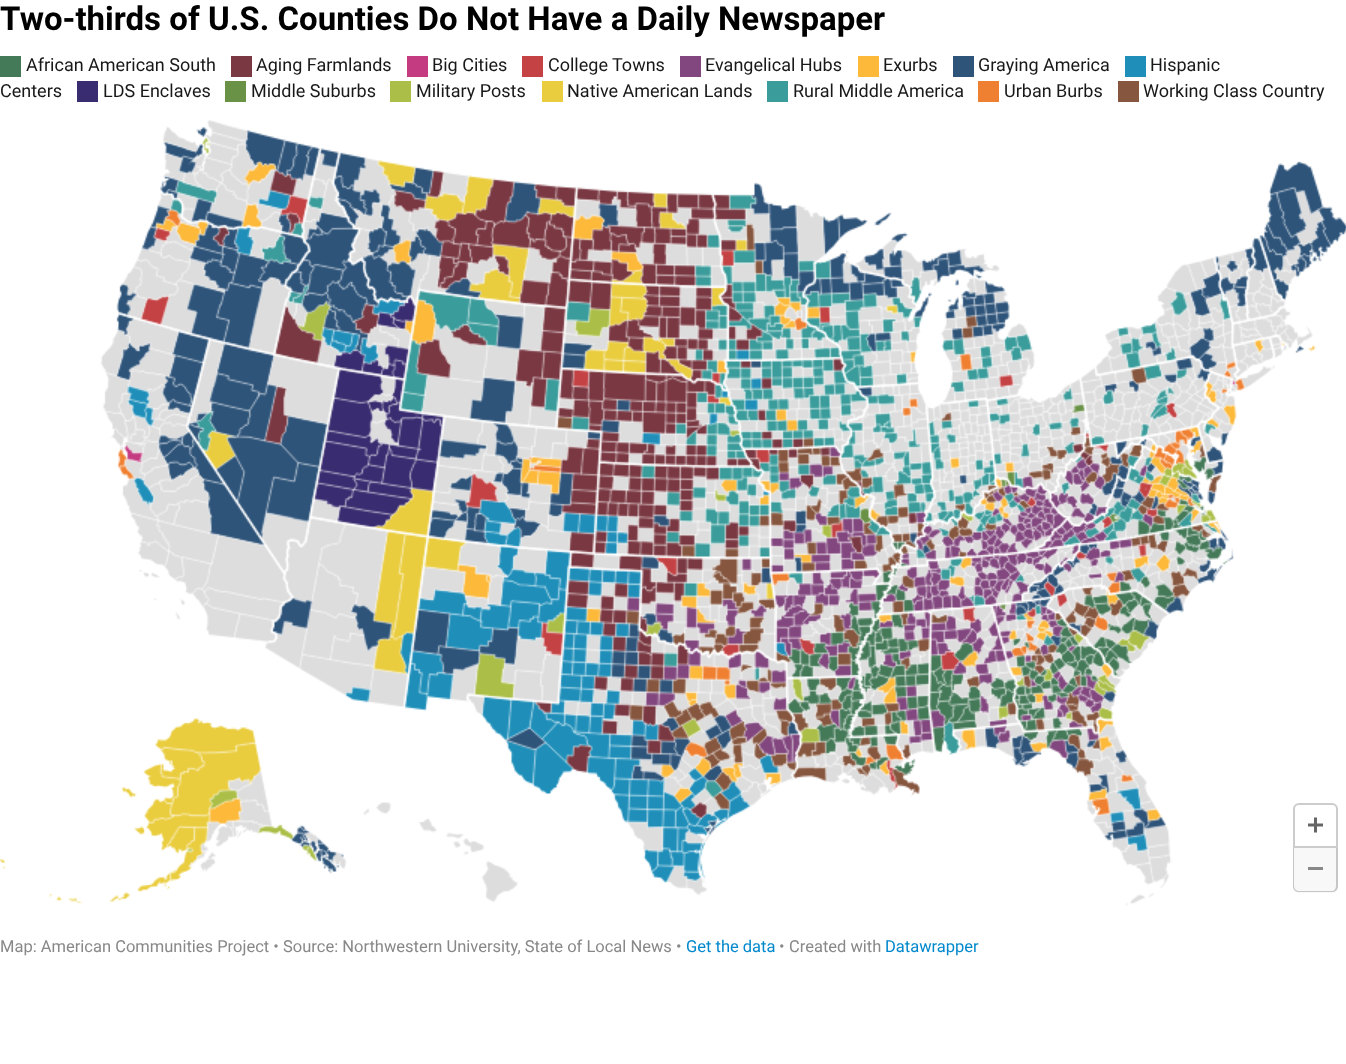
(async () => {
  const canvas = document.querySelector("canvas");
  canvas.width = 1346;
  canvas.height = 1064;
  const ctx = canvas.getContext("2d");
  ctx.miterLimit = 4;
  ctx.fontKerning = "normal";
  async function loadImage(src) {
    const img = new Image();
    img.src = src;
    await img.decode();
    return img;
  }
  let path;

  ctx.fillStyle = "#ffffff";
  ctx.fillRect(0, 0, 1346, 1064);
  for (const [x, y, w, h, color] of [
    [0, 56, 21, 21, "#457a59"],
    [231, 56, 21, 21, "#7a3842"],
    [522, 56, 21, 21, "#c44244"],
    [680, 56, 21, 21, "#82477f"],
    [858, 56, 21, 21, "#fcb93a"],
    [1125, 56, 21, 21, "#1f8fba"],
    [407, 56, 21, 21, "#c43b82"],
    [953, 56, 21, 21, "#2e547a"],
    [77, 81, 21, 21, "#3a2c70"],
    [225, 81, 21, 21, "#699246"],
    [390, 81, 21, 21, "#abbf48"],
    [542, 81, 21, 21, "#eacd3f"],
    [767, 81, 21, 21, "#3a9c9b"],
    [978, 81, 21, 21, "#f08031"],
    [1118, 81, 21, 21, "#86563e"],
  ]) {
    ctx.fillStyle = color;
    ctx.fillRect(x, y, w, h);
  }
  ctx.drawImage(await loadImage("img/1.png"), 0, 120, 1346, 786);
  ctx.beginPath();
  ctx.roundRect(1294, 804, 43, 43, [5, 5, 0, 0]);
  ctx.strokeStyle = "#cccccc";
  ctx.lineWidth = 2;
  ctx.stroke();
  ctx.drawImage(await loadImage("img/2.png"), 1308, 817, 15, 16);
  ctx.fillStyle = "#f8f8f8";
  ctx.beginPath();
  ctx.roundRect(1293, 848, 45, 45, [0, 0, 6, 6]);
  ctx.fill();
  ctx.fillStyle = "#c6c6c6";
  path = new Path2D("M1293 848H1338V886C1338 890 1335 892 1332 892H1299C1296 892 1293 890 1293 886ZM1294 848H1336V886C1336 889 1334 891 1332 891H1299C1297 891 1294 889 1294 886Z");
  ctx.fill(path, "evenodd");
  ctx.fillStyle = "#888888";
  ctx.fillRect(1308, 867, 15, 3);
  ctx.font = "bold 33px Roboto";
  ctx.fillStyle = "#000000";
  ctx.fillText("Two-thirds of U.S. Counties Do Not Have a Daily Newspaper", 0, 30);
  ctx.font = "18px Roboto";
  ctx.fillStyle = "#181818";
  for (const [text, x, y] of [
    ["African American South", 26, 71],
    ["Aging Farmlands", 256, 71],
    ["College", 548, 71],
    ["Towns", 612, 71],
    ["Evangelical Hubs", 705, 71],
    ["Exurbs", 883, 71],
    ["Hispanic", 1150, 71],
    ["Centers", 0, 97],
    ["Big Cities", 432, 71],
    ["Graying America", 978, 71],
    ["LDS Enclaves", 103, 97],
    ["Middle Suburbs", 251, 97],
    ["Military Posts", 416, 97],
    ["Native American Lands", 567, 97],
    ["Rural Middle America", 793, 97],
    ["Urban Burbs", 1004, 97],
    ["Working Class Country", 1143, 97],
  ]) {
    ctx.fillText(text, x, y);
  }
  ctx.font = "16.5px Roboto";
  ctx.fillStyle = "#888888";
  ctx.fillText("Map: American Communities Project •", 0, 952);
  ctx.fillText("Source: Northwestern University, State of Local News •", 283, 952);
  ctx.fillStyle = "#0088cc";
  ctx.fillText("Get the data", 686, 952);
  ctx.fillStyle = "#888888";
  ctx.fillText("•", 779, 952);
  ctx.fillText("Created with", 789, 952);
  ctx.fillStyle = "#0088cc";
  ctx.fillText("Datawrapper", 885, 952);
})();
